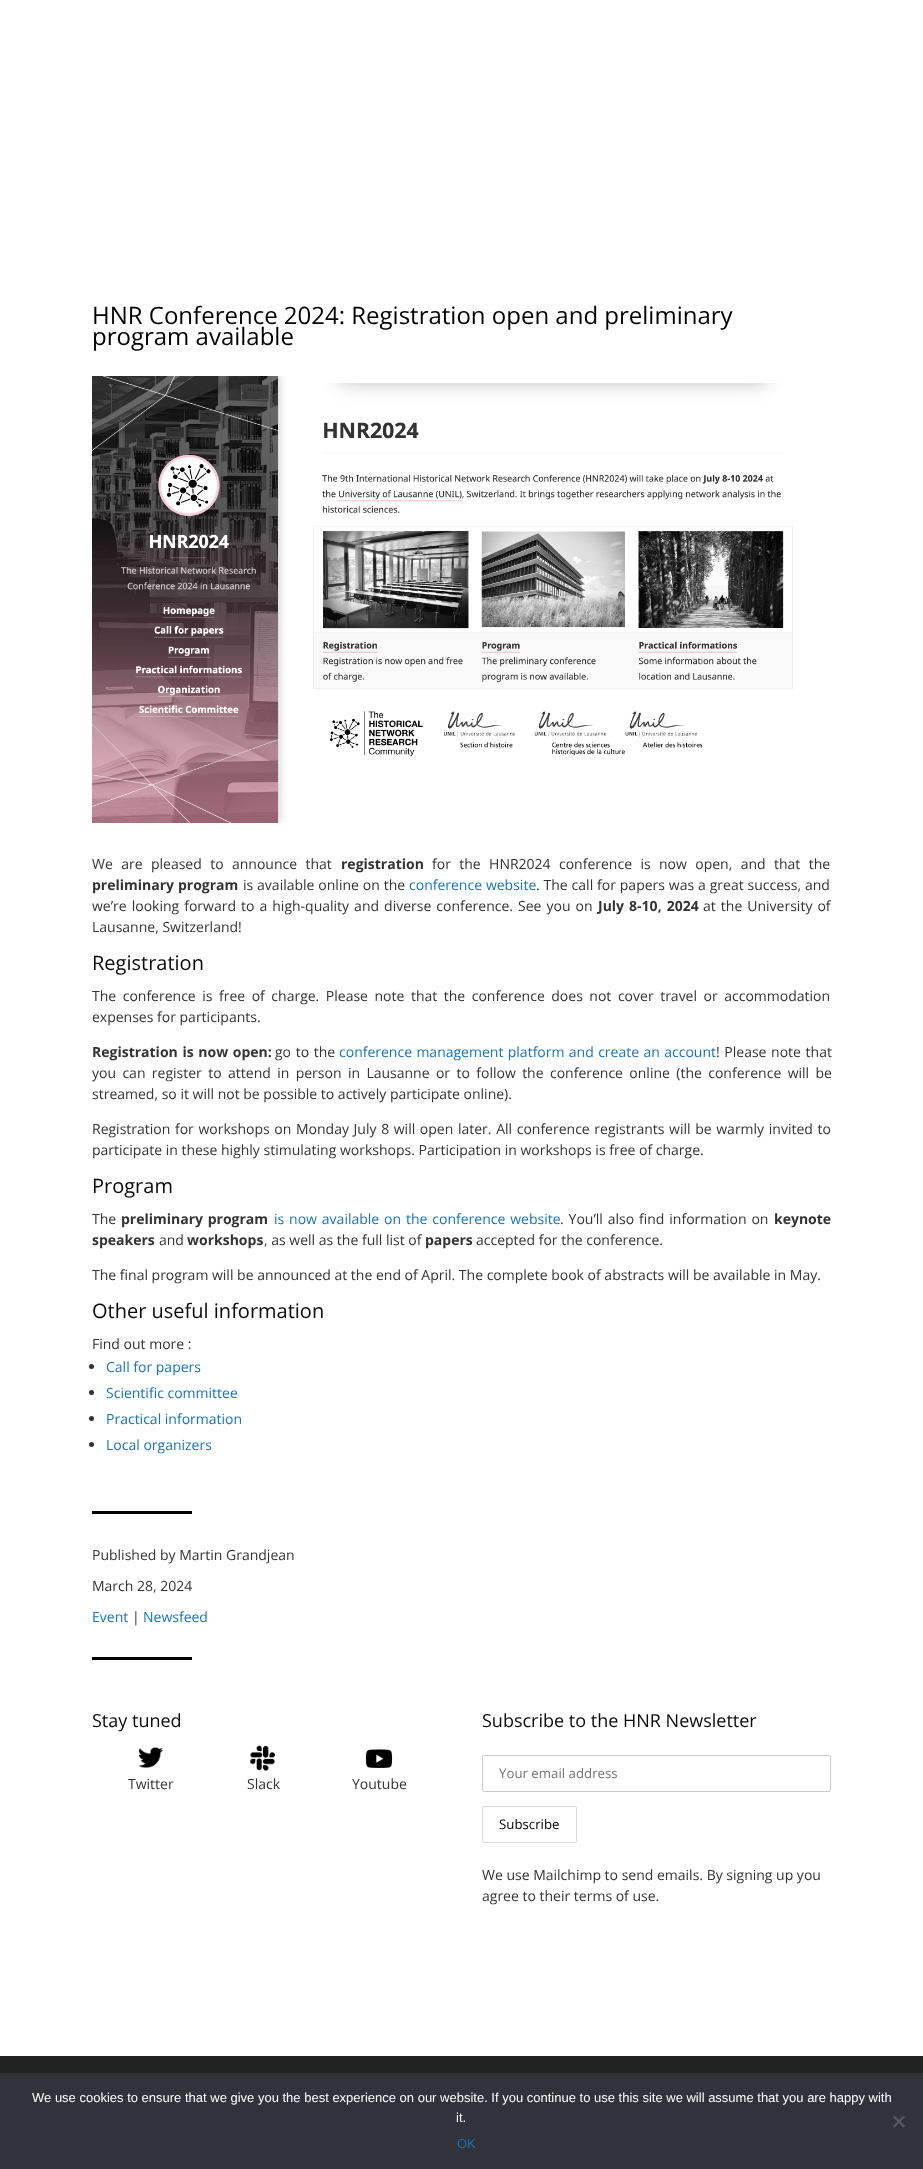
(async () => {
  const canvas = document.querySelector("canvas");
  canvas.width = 923;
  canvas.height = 2169;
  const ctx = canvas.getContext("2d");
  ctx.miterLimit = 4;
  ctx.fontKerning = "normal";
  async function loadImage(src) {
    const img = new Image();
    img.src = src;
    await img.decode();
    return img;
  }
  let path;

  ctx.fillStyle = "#ffffff";
  ctx.fillRect(0, 0, 923, 2169);
  ctx.drawImage(await loadImage("img/1.png"), 92, 376, 701, 447);
  ctx.fillStyle = "#333333";
  ctx.beginPath();
  ctx.arc(91.5, 1366.5, 2.5, 0, Math.PI * 2);
  ctx.fill();
  ctx.beginPath();
  ctx.arc(91.5, 1392.5, 2.5, 0, Math.PI * 2);
  ctx.fill();
  ctx.beginPath();
  ctx.arc(91.5, 1418.5, 2.5, 0, Math.PI * 2);
  ctx.fill();
  ctx.beginPath();
  ctx.arc(91.5, 1444.5, 2.5, 0, Math.PI * 2);
  ctx.fill();
  ctx.fillStyle = "#000000";
  ctx.fillRect(92, 1511, 100, 3);
  ctx.fillRect(92, 1657, 100, 3);
  ctx.drawImage(await loadImage("img/2.png"), 138, 1747, 26, 22);
  ctx.drawImage(await loadImage("img/3.png"), 249, 1745, 26, 26);
  ctx.drawImage(await loadImage("img/4.png"), 365, 1747, 28, 24);
  ctx.beginPath();
  ctx.roundRect(482.5, 1755.5, 348, 36, 1.5);
  ctx.strokeStyle = "#cccccc";
  ctx.stroke();
  ctx.beginPath();
  ctx.roundRect(482.5, 1806.5, 94, 36, 1.5);
  ctx.strokeStyle = "#d9d9d9";
  ctx.stroke();
  ctx.fillStyle = "#222222";
  ctx.fillRect(0, 2056, 923, 17);
  ctx.fillStyle = "#32323a";
  ctx.fillRect(0, 2073, 923, 96);
  ctx.fillStyle = "#59595d";
  path = new Path2D("M903.5 2115.5L905 2117L894.5 2127.5L893 2126Z");
  ctx.fill(path);
  path = new Path2D("M893 2117L894.5 2115.5L905 2126L903.5 2127.5Z");
  ctx.fill(path);
  ctx.font = "24px Open Sans";
  ctx.fillStyle = "#000000";
  ctx.fillText("HNR Conference 2024: Registration open and preliminary", 92, 324);
  ctx.fillText("program available", 92, 345);
  ctx.wordSpacing = "4.75px";
  ctx.font = "14px Open Sans";
  ctx.fillStyle = "#333333";
  ctx.fillText("We are pleased to announce that", 92, 869);
  ctx.wordSpacing = "0px";
  ctx.font = "bold 14px Open Sans";
  ctx.fillText("registration", 341, 869);
  ctx.wordSpacing = "4.75px";
  ctx.font = "14px Open Sans";
  ctx.fillText("for the HNR2024 conference is now open, and that the", 432, 869);
  ctx.wordSpacing = "0.25px";
  ctx.font = "bold 14px Open Sans";
  ctx.fillText("preliminary program", 92, 890);
  ctx.font = "14px Open Sans";
  ctx.fillText("is available online on the", 243, 890);
  ctx.fillStyle = "#1873ba";
  ctx.fillText("conference website", 409, 890);
  ctx.fillStyle = "#333333";
  ctx.fillText(". The call for papers was a great success, and", 536, 890);
  ctx.wordSpacing = "1.4px";
  ctx.fillText("we’re looking forward to a high-quality and diverse conference. See you on", 92, 911);
  ctx.font = "bold 14px Open Sans";
  ctx.fillText("July 8-10, 2024", 598, 911);
  ctx.font = "14px Open Sans";
  ctx.fillText("at the University of", 703, 911);
  ctx.wordSpacing = "0px";
  ctx.fillText("Lausanne, Switzerland!", 92, 932);
  ctx.font = "20px Open Sans";
  ctx.fillStyle = "#0a0a0a";
  ctx.fillText("Registration", 92, 970);
  ctx.wordSpacing = "2.9px";
  ctx.font = "14px Open Sans";
  ctx.fillStyle = "#333333";
  ctx.fillText("The conference is free of charge. Please note that the conference does not cover travel or accommodation", 92, 1001);
  ctx.wordSpacing = "0px";
  ctx.fillText("expenses for participants.", 92, 1022);
  ctx.wordSpacing = "1px";
  ctx.font = "bold 14px Open Sans";
  ctx.fillText("Registration is now open:", 92, 1057);
  ctx.font = "14px Open Sans";
  ctx.fillText("go to the", 275, 1057);
  ctx.wordSpacing = "0.75px";
  ctx.fillStyle = "#1873ba";
  ctx.fillText("conference management platform and create an account", 339, 1057);
  ctx.wordSpacing = "1px";
  ctx.fillStyle = "#333333";
  ctx.fillText("! Please note that", 716, 1057);
  ctx.wordSpacing = "2.75px";
  ctx.fillText("you can register to attend in person in Lausanne or to follow the conference online (the conference will be", 92, 1078);
  ctx.wordSpacing = "0px";
  ctx.fillText("streamed, so it will not be possible to actively participate online).", 92, 1099);
  ctx.wordSpacing = "1px";
  ctx.fillText("Registration for workshops on Monday July 8 will open later. All conference registrants will be warmly invited to", 92, 1134);
  ctx.wordSpacing = "0px";
  ctx.fillText("participate in these highly stimulating workshops. Participation in workshops is free of charge.", 92, 1155);
  ctx.font = "20px Open Sans";
  ctx.fillStyle = "#0a0a0a";
  ctx.fillText("Program", 92, 1193);
  ctx.font = "14px Open Sans";
  ctx.fillStyle = "#333333";
  ctx.fillText("The", 92, 1224);
  ctx.wordSpacing = "1px";
  ctx.font = "bold 14px Open Sans";
  ctx.fillText("preliminary program", 121, 1224);
  ctx.wordSpacing = "1.25px";
  ctx.font = "14px Open Sans";
  ctx.fillStyle = "#1873ba";
  ctx.fillText("is now available on the conference website", 274, 1224);
  ctx.fillStyle = "#333333";
  ctx.fillText(". You’ll also find information on", 560, 1224);
  ctx.wordSpacing = "0px";
  ctx.font = "bold 14px Open Sans";
  ctx.fillText("keynote", 774, 1224);
  ctx.fillText("speakers", 92, 1245);
  ctx.font = "14px Open Sans";
  ctx.fillText("and", 159, 1245);
  ctx.font = "bold 14px Open Sans";
  ctx.fillText("workshops", 187, 1245);
  ctx.font = "14px Open Sans";
  ctx.fillText(", as well as the full list of", 264, 1245);
  ctx.font = "bold 14px Open Sans";
  ctx.fillText("papers", 425, 1245);
  ctx.font = "14px Open Sans";
  ctx.fillText("accepted for the conference.", 476, 1245);
  ctx.fillText("The final program will be announced at the end of April. The complete book of abstracts will be available in May.", 92, 1280);
  ctx.font = "20px Open Sans";
  ctx.fillStyle = "#0a0a0a";
  ctx.fillText("Other useful information", 92, 1318);
  ctx.font = "14px Open Sans";
  ctx.fillStyle = "#333333";
  ctx.fillText("Find out more :", 92, 1349);
  ctx.fillStyle = "#1873ba";
  for (const [text, x, y] of [
    ["Call for papers", 106, 1372],
    ["Scientific committee", 106, 1398],
    ["Practical information", 106, 1424],
    ["Local organizers", 106, 1450],
  ]) {
    ctx.fillText(text, x, y);
  }
  ctx.fillStyle = "#333333";
  ctx.fillText("Published by Martin Grandjean", 92, 1560);
  ctx.fillText("March 28, 2024", 92, 1591);
  ctx.fillStyle = "#1873ba";
  ctx.fillText("Event", 92, 1622);
  ctx.fillStyle = "#333333";
  ctx.fillText("|", 132, 1622);
  ctx.fillStyle = "#1873ba";
  ctx.fillText("Newsfeed", 143, 1622);
  ctx.font = "18px Open Sans";
  ctx.fillStyle = "#0a0a0a";
  ctx.fillText("Stay tuned", 92, 1727);
  ctx.font = "14px Open Sans";
  ctx.fillStyle = "#333333";
  for (const [text, x, y] of [
    ["Twitter", 128, 1789],
    ["Slack", 247, 1789],
    ["Youtube", 352, 1789],
  ]) {
    ctx.fillText(text, x, y);
  }
  ctx.font = "18px Open Sans";
  ctx.fillStyle = "#0a0a0a";
  ctx.fillText("Subscribe to the HNR Newsletter", 482, 1727);
  ctx.font = "13.25px Open Sans";
  ctx.fillStyle = "#757575";
  ctx.fillText("Your email address", 499, 1778);
  ctx.fillStyle = "#000000";
  ctx.fillText("Subscribe", 499, 1829);
  ctx.font = "14px Open Sans";
  ctx.fillStyle = "#333333";
  ctx.fillText("We use Mailchimp to send emails. By signing up you", 482, 1880);
  ctx.fillText("agree to their terms of use.", 482, 1901);
  ctx.font = "13px Liberation Sans";
  ctx.fillStyle = "#ffffff";
  ctx.fillText("We use cookies to ensure that we give you the best experience on our website. If you continue to use this site we will assume that you are happy with", 32, 2102);
  ctx.fillText("it.", 456, 2122);
  ctx.fillStyle = "#1873ba";
  ctx.fillText("OK", 457, 2148);
})();
